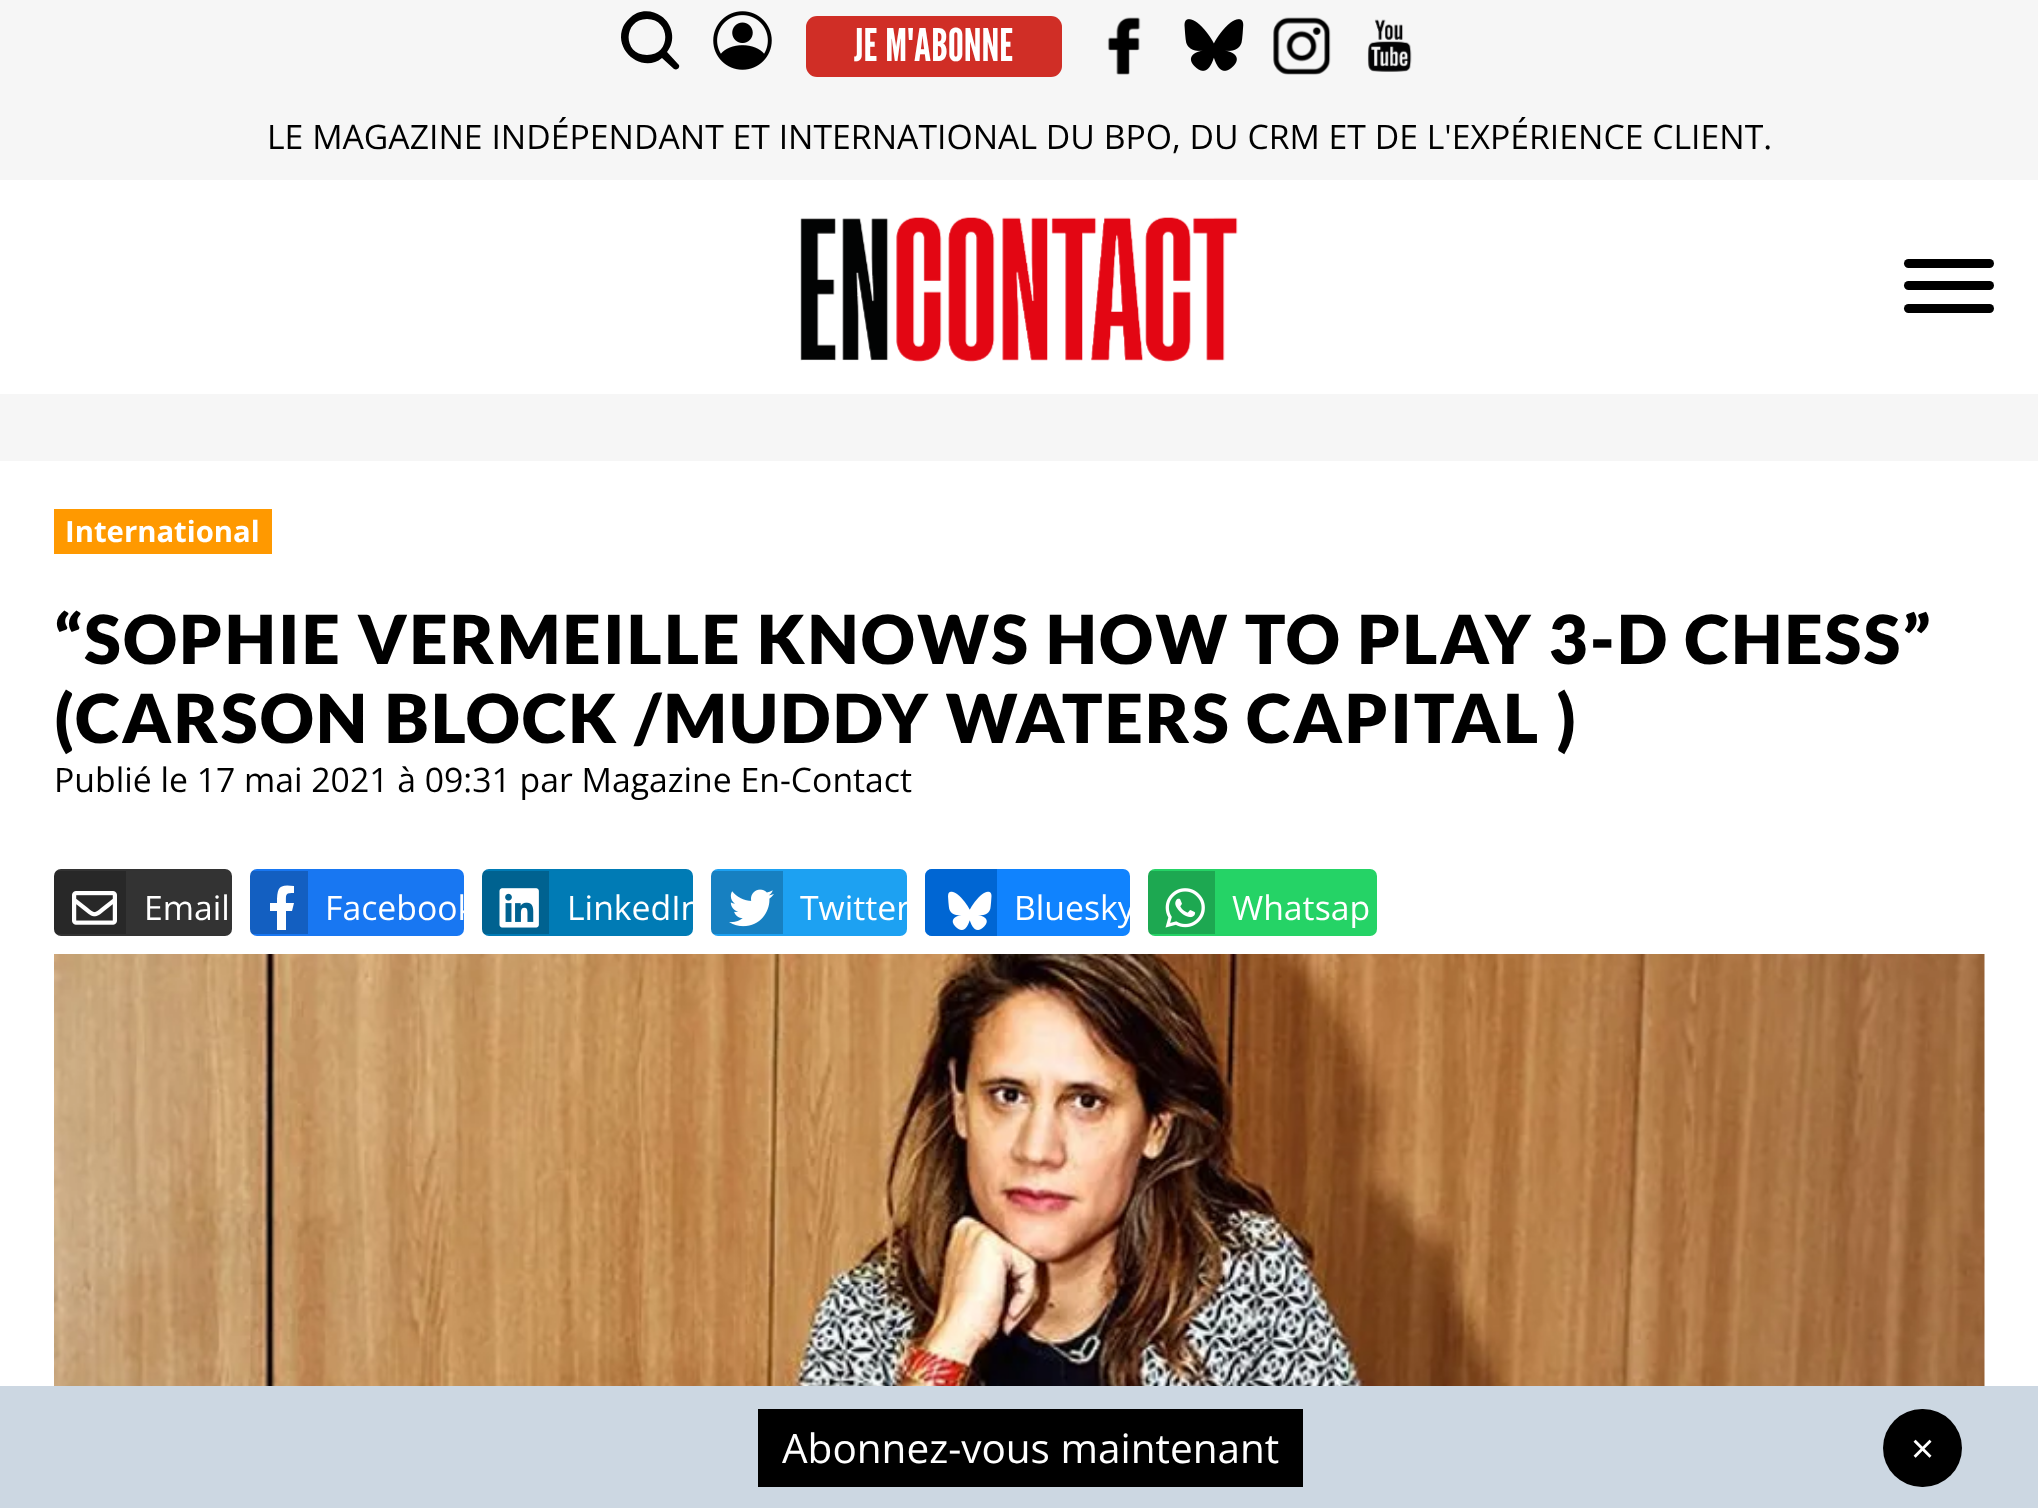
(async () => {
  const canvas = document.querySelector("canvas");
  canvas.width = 2038;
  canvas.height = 1508;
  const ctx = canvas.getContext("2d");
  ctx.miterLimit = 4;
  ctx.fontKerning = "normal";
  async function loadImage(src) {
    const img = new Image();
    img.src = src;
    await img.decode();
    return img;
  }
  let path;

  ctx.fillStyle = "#ffffff";
  ctx.fillRect(0, 0, 2038, 1508);
  ctx.fillStyle = "#f6f6f6";
  ctx.fillRect(0, 0, 2038, 180);
  ctx.fillStyle = "#000000";
  path = new Path2D("M647 55C622 55 623 19 647 19C671 19 672 55 647 55ZM667 52C676 41 673 24 661 16C654 11 645 10 637 13C631 16 626 21 623 27C613 51 643 74 662 58L674 69C678 71 681 66 678 64Z");
  ctx.fill(path);
  ctx.drawImage(await loadImage("img/1.png"), 713, 11, 59, 59);
  ctx.fillStyle = "#d02e26";
  ctx.beginPath();
  ctx.roundRect(806, 16, 256, 61, 11);
  ctx.fill();
  ctx.drawImage(await loadImage("img/2.png"), 1107, 17, 34, 58);
  ctx.drawImage(await loadImage("img/3.png"), 1184, 19, 60, 52);
  ctx.drawImage(await loadImage("img/4.png"), 1273, 17, 58, 58);
  ctx.drawImage(await loadImage("img/5.png"), 1367, 19, 45, 53);
  ctx.drawImage(await loadImage("img/6.png"), 800, 217, 438, 145);
  ctx.fillStyle = "#000000";
  ctx.beginPath();
  ctx.roundRect(1904, 304, 90, 9, 4.5);
  ctx.fill();
  ctx.beginPath();
  ctx.roundRect(1904, 259, 90, 9, 4.5);
  ctx.fill();
  ctx.beginPath();
  ctx.roundRect(1904, 281, 90, 9, 4.5);
  ctx.fill();
  ctx.fillStyle = "#f6f6f6";
  ctx.fillRect(0, 394, 2038, 67);
  ctx.fillStyle = "#ff9900";
  ctx.fillRect(54, 509, 218, 45);
  ctx.fillStyle = "#333333";
  ctx.beginPath();
  ctx.roundRect(54, 869, 178, 67, 7);
  ctx.fill();
  ctx.save();
  ctx.beginPath();
  ctx.roundRect(54, 869, 178, 67, 7);
  ctx.clip();
  ctx.fillStyle = "rgba(0, 0, 0, 0.2)";
  ctx.fillRect(54, 871, 72, 63);
  ctx.restore();
  ctx.drawImage(await loadImage("img/7.png"), 72, 891, 45, 34);
  ctx.fillStyle = "#1877f2";
  ctx.beginPath();
  ctx.roundRect(250, 869, 214, 67, 7);
  ctx.fill();
  ctx.save();
  ctx.beginPath();
  ctx.roundRect(250, 869, 214, 67, 7);
  ctx.clip();
  ctx.fillStyle = "rgba(0, 0, 0, 0.2)";
  ctx.fillRect(250, 871, 58, 63);
  ctx.restore();
  ctx.fillStyle = "#ffffff";
  path = new Path2D("M292 911H286V930H277V911H270V903H277C277 887 279 884 294 886V893C285 893 286 894 286 903H294Z");
  ctx.fill(path);
  ctx.fillStyle = "#007bb5";
  ctx.beginPath();
  ctx.roundRect(482, 869, 211, 67, 7);
  ctx.fill();
  ctx.save();
  ctx.beginPath();
  ctx.roundRect(482, 869, 211, 67, 7);
  ctx.clip();
  ctx.fillStyle = "rgba(0, 0, 0, 0.2)";
  ctx.fillRect(482, 871, 67, 63);
  ctx.restore();
  ctx.drawImage(await loadImage("img/8.png"), 499, 888, 40, 40);
  ctx.fillStyle = "#1da1f2";
  ctx.beginPath();
  ctx.roundRect(711, 869, 196, 67, 7);
  ctx.fill();
  ctx.save();
  ctx.beginPath();
  ctx.roundRect(711, 869, 196, 67, 7);
  ctx.clip();
  ctx.fillStyle = "rgba(0, 0, 0, 0.2)";
  ctx.fillRect(711, 871, 72, 63);
  ctx.restore();
  ctx.drawImage(await loadImage("img/9.png"), 729, 889, 45, 38);
  ctx.fillStyle = "#1083fe";
  ctx.beginPath();
  ctx.roundRect(925, 869, 205, 67, 7);
  ctx.fill();
  ctx.fillStyle = "#0066d3";
  ctx.beginPath();
  ctx.roundRect(925, 869, 72, 67, [7, 0, 0, 7]);
  ctx.fill();
  ctx.drawImage(await loadImage("img/10.png"), 948, 891, 44, 39);
  ctx.fillStyle = "#25d366";
  ctx.beginPath();
  ctx.roundRect(1148, 869, 229, 67, 7);
  ctx.fill();
  ctx.save();
  ctx.beginPath();
  ctx.roundRect(1148, 869, 229, 67, 7);
  ctx.clip();
  ctx.fillStyle = "rgba(0, 0, 0, 0.2)";
  ctx.fillRect(1148, 871, 67, 63);
  ctx.restore();
  ctx.drawImage(await loadImage("img/11.png"), 1165, 888, 40, 40);
  ctx.drawImage(await loadImage("img/12.png"), 54, 954, 1931, 432);
  ctx.fillStyle = "#ccd7e2";
  ctx.fillRect(0, 1386, 2038, 122);
  ctx.fillStyle = "#000000";
  ctx.fillRect(758, 1409, 545, 78);
  ctx.beginPath();
  ctx.roundRect(1883, 1409, 79, 78, 39);
  ctx.fill();
  ctx.font = "45px League Gothic";
  ctx.fillStyle = "#ffffff";
  ctx.fillText("JE M'ABONNE", 854, 61);
  ctx.font = "33.75px Open Sans";
  ctx.fillStyle = "#000000";
  ctx.fillText("LE MAGAZINE INDÉPENDANT ET INTERNATIONAL DU BPO, DU CRM ET DE L'EXPÉRIENCE CLIENT.", 267, 149);
  ctx.font = "bold 29.25px Open Sans";
  ctx.fillStyle = "#ffffff";
  ctx.fillText("International", 65, 542);
  ctx.letterSpacing = "2.25px";
  ctx.font = "900 67.5px Lato";
  ctx.fillStyle = "#000000";
  ctx.fillText("“SOPHIE VERMEILLE KNOWS HOW TO PLAY 3-D CHESS”", 54, 664);
  ctx.fillText("(CARSON BLOCK /MUDDY WATERS CAPITAL )", 54, 743);
  ctx.letterSpacing = "0px";
  ctx.font = "33.75px Open Sans";
  ctx.fillText("Publié le 17 mai 2021 à 09:31 par Magazine En-Contact", 54, 792);
  ctx.fillStyle = "#ffffff";
  ctx.fillText("Email", 144, 920);
  ctx.save();
  ctx.beginPath();
  ctx.roundRect(250, 869, 214, 67, 7);
  ctx.clip();
  ctx.fillText("Facebook", 325, 920);
  ctx.restore();
  ctx.save();
  ctx.beginPath();
  ctx.roundRect(482, 869, 211, 67, 7);
  ctx.clip();
  ctx.fillText("LinkedIn", 567, 920);
  ctx.restore();
  ctx.save();
  ctx.beginPath();
  ctx.roundRect(711, 869, 196, 67, 7);
  ctx.clip();
  ctx.fillText("Twitter", 800, 920);
  ctx.restore();
  ctx.save();
  ctx.beginPath();
  ctx.roundRect(925, 869, 205, 67, 7);
  ctx.clip();
  ctx.fillText("Bluesky", 1014, 920);
  ctx.restore();
  ctx.fillText("Whatsap", 1232, 920);
  ctx.font = "40.5px Open Sans";
  ctx.fillText("Abonnez-vous maintenant", 782, 1463);
  ctx.fillText("×", 1911, 1463);
})();
